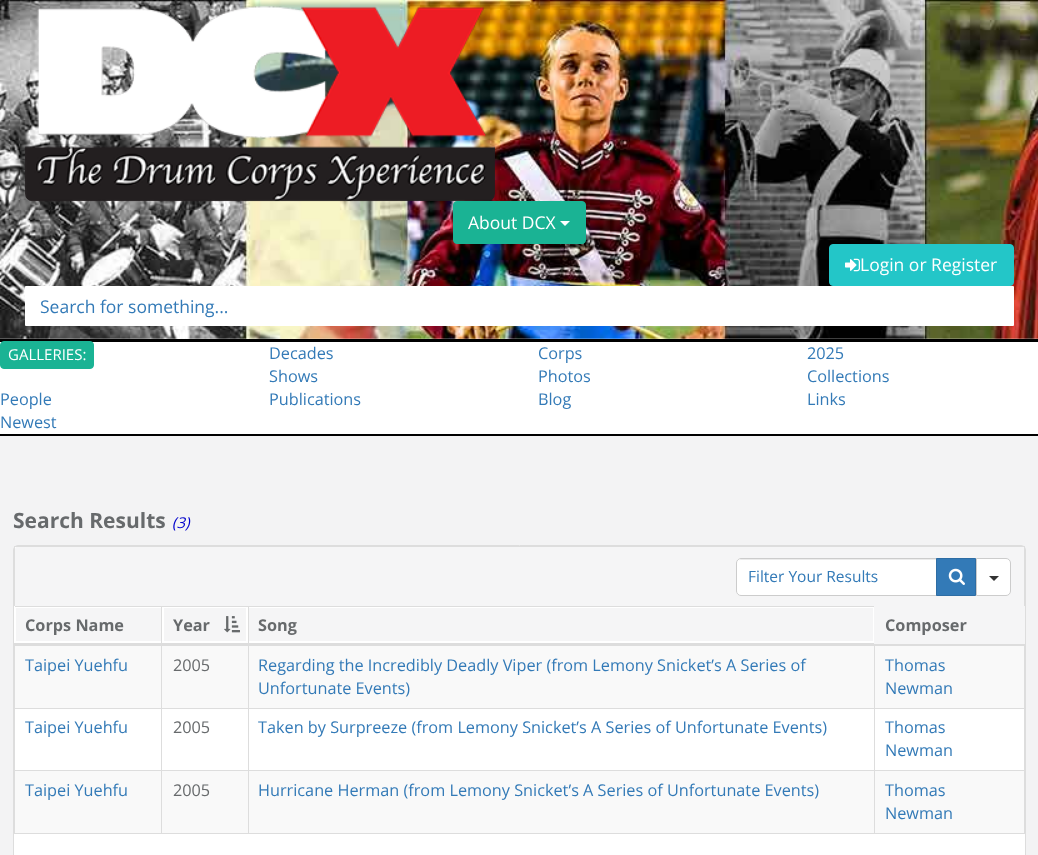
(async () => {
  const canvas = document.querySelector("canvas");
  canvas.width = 1038;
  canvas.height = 855;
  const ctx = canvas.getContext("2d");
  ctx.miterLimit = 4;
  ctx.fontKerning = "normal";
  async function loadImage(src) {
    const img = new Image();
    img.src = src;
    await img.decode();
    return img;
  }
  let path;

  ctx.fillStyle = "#ffffff";
  ctx.fillRect(0, 0, 1038, 855);
  ctx.drawImage(await loadImage("img/1.png"), 0, 0, 1038, 339);
  ctx.drawImage(await loadImage("img/2.png"), 25, 6, 470, 196);
  ctx.fillStyle = "#1ab394";
  ctx.beginPath();
  ctx.roundRect(453.5, 201.5, 132, 42, 3.5);
  ctx.fill();
  ctx.strokeStyle = "#1ab394";
  ctx.stroke();
  ctx.fillStyle = "#ffffff";
  path = new Path2D("M560 221H570L565 226Z");
  ctx.fill(path);
  ctx.fillStyle = "#23c6c8";
  ctx.beginPath();
  ctx.roundRect(829.5, 244.5, 184, 41, 3.5);
  ctx.fill();
  ctx.strokeStyle = "#23c6c8";
  ctx.stroke();
  ctx.drawImage(await loadImage("img/3.png"), 845, 258, 15, 14);
  ctx.fillStyle = "#ffffff";
  ctx.beginPath();
  ctx.roundRect(25, 286, 989, 40, 1);
  ctx.fill();
  ctx.fillStyle = "#000000";
  ctx.fillRect(0, 339, 1038, 3);
  ctx.fillRect(0, 434, 1038, 2);
  ctx.fillStyle = "#1ab394";
  ctx.beginPath();
  ctx.roundRect(0.5, 341.5, 93, 27, 3.5);
  ctx.fill();
  ctx.strokeStyle = "#1ab394";
  ctx.stroke();
  ctx.fillStyle = "#f3f3f4";
  ctx.fillRect(0, 436, 1038, 419);
  ctx.fillStyle = "#ffffff";
  ctx.beginPath();
  ctx.roundRect(13.5, 545.5, 1012, 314, 4.5);
  ctx.fill();
  ctx.strokeStyle = "#dddddd";
  ctx.stroke();
  ctx.fillStyle = "#f5f5f6";
  ctx.beginPath();
  ctx.roundRect(15, 546, 1010, 60, [4, 4, 0, 0]);
  ctx.fill();
  for (const [x, y, w, h, color] of [
    [14, 546, 1011, 1, "#dddddd"],
    [1024, 546, 1, 288, "#dddddd"],
    [14, 833, 1011, 1, "#dddddd"],
    [14, 546, 1, 288, "#dddddd"],
  ]) {
    ctx.fillStyle = color;
    ctx.fillRect(x, y, w, h);
  }
  ctx.fillStyle = "#ffffff";
  ctx.beginPath();
  ctx.roundRect(736, 558, 202, 38, [5, 0, 0, 5]);
  ctx.fill();
  ctx.fillStyle = "#ececec";
  path = new Path2D("M741 560H936V559H741C739 560 738 562 738 564C738 562 739 560 741 560Z");
  ctx.fill(path);
  ctx.beginPath();
  ctx.roundRect(736.5, 558.5, 201, 37, [4.5, 0, 0, 4.5]);
  ctx.strokeStyle = "#cccccc";
  ctx.stroke();
  ctx.fillStyle = "#337ab7";
  ctx.beginPath();
  ctx.rect(936.5, 558.5, 39, 37);
  ctx.fill();
  ctx.strokeStyle = "#2e6da4";
  ctx.stroke();
  ctx.drawImage(await loadImage("img/4.png"), 948, 568, 17, 17);
  ctx.fillStyle = "#ffffff";
  ctx.beginPath();
  ctx.roundRect(976.5, 558.5, 34, 37, [0, 4.5, 4.5, 0]);
  ctx.fill();
  ctx.strokeStyle = "#cccccc";
  ctx.stroke();
  ctx.fillStyle = "#333333";
  path = new Path2D("M989 576H999L994 581Z");
  ctx.fill(path);
  for (const [x, y, w, h, color] of [
    [14, 606, 861, 1, "#dddddd"],
    [15, 646, 1009, 62, "#f9f9f9"],
    [874, 708, 151, 1, "#dddddd"],
    [874, 770, 151, 1, "#dddddd"],
    [15, 771, 1009, 62, "#f9f9f9"],
    [874, 770, 1, 64, "#dddddd"],
    [248, 770, 627, 1, "#dddddd"],
    [874, 708, 1, 63, "#dddddd"],
    [248, 708, 627, 1, "#dddddd"],
    [248, 770, 1, 64, "#dddddd"],
    [161, 770, 88, 1, "#dddddd"],
    [248, 708, 1, 63, "#dddddd"],
    [161, 708, 88, 1, "#dddddd"],
    [161, 770, 1, 64, "#dddddd"],
    [14, 770, 149, 1, "#dddddd"],
    [161, 708, 1, 63, "#dddddd"],
    [14, 708, 149, 1, "#dddddd"],
    [161, 644, 1, 65, "#dddddd"],
    [161, 606, 1, 39, "#dddddd"],
    [14, 606, 1, 39, "#ffffff"],
    [16, 608, 145, 33, "#f5f5f6"],
    [248, 644, 1, 65, "#dddddd"],
    [248, 606, 1, 39, "#dddddd"],
    [164, 608, 82, 33, "#f5f5f6"],
  ]) {
    ctx.fillStyle = color;
    ctx.fillRect(x, y, w, h);
  }
  ctx.drawImage(await loadImage("img/5.png"), 224, 616, 16, 17);
  for (const [x, y, w, h, color] of [
    [249, 608, 624, 33, "#f5f5f6"],
    [874, 644, 1, 65, "#dddddd"],
    [14, 643, 1012, 3, "#dddddd"],
    [874, 606, 151, 38, "#f5f5f6"],
  ]) {
    ctx.fillStyle = color;
    ctx.fillRect(x, y, w, h);
  }
  ctx.font = "17.5px Open Sans";
  ctx.fillStyle = "#ffffff";
  ctx.fillText("About DCX", 468, 229);
  ctx.fillText("Login or Register", 860, 271);
  ctx.fillStyle = "#337ab7";
  ctx.fillText("Search for something...", 40, 313);
  ctx.font = "15px Open Sans";
  ctx.fillStyle = "#ffffff";
  ctx.fillText("GALLERIES:", 8, 360);
  ctx.font = "16.25px Open Sans";
  ctx.fillStyle = "#337ab7";
  for (const [text, x, y] of [
    ["Decades", 269, 359],
    ["Corps", 538, 359],
    ["2025", 807, 359],
    ["Shows", 269, 382],
    ["Photos", 538, 382],
    ["Collections", 807, 382],
    ["People", 0, 405],
    ["Publications", 269, 405],
    ["Blog", 538, 405],
    ["Links", 807, 405],
    ["Newest", 0, 428],
  ]) {
    ctx.fillText(text, x, y);
  }
  ctx.font = "bold 21px Open Sans";
  ctx.fillStyle = "#676a6c";
  ctx.fillText("Search Results", 13, 528);
  ctx.font = "italic 15px Open Sans";
  ctx.fillStyle = "#0000cc";
  ctx.fillText("(3)", 172, 528);
  ctx.font = "15.5px Open Sans";
  ctx.fillStyle = "#337ab7";
  ctx.fillText("Filter Your Results", 748, 582);
  ctx.font = "bold 16.25px Open Sans";
  ctx.fillStyle = "#676a6c";
  for (const [text, x, y] of [
    ["Corps Name", 25, 631],
    ["Year", 173, 631],
    ["Song", 258, 631],
    ["Composer", 885, 631],
  ]) {
    ctx.fillText(text, x, y);
  }
  ctx.font = "16.25px Open Sans";
  ctx.fillStyle = "#337ab7";
  ctx.fillText("Taipei Yuehfu", 25, 671);
  ctx.fillStyle = "#676a6c";
  ctx.fillText("2005", 173, 671);
  ctx.fillStyle = "#337ab7";
  for (const [text, x, y] of [
    ["Regarding the Incredibly Deadly Viper (from Lemony Snicket’s A Series of", 258, 671],
    ["Unfortunate Events)", 258, 694],
    ["Thomas", 885, 671],
    ["Newman", 885, 694],
    ["Taipei Yuehfu", 25, 733],
  ]) {
    ctx.fillText(text, x, y);
  }
  ctx.fillStyle = "#676a6c";
  ctx.fillText("2005", 173, 733);
  ctx.fillStyle = "#337ab7";
  for (const [text, x, y] of [
    ["Taken by Surpreeze (from Lemony Snicket’s A Series of Unfortunate Events)", 258, 733],
    ["Thomas", 885, 733],
    ["Newman", 885, 756],
    ["Taipei Yuehfu", 25, 796],
  ]) {
    ctx.fillText(text, x, y);
  }
  ctx.fillStyle = "#676a6c";
  ctx.fillText("2005", 173, 796);
  ctx.fillStyle = "#337ab7";
  for (const [text, x, y] of [
    ["Hurricane Herman (from Lemony Snicket’s A Series of Unfortunate Events)", 258, 796],
    ["Thomas", 885, 796],
    ["Newman", 885, 819],
  ]) {
    ctx.fillText(text, x, y);
  }
})();
